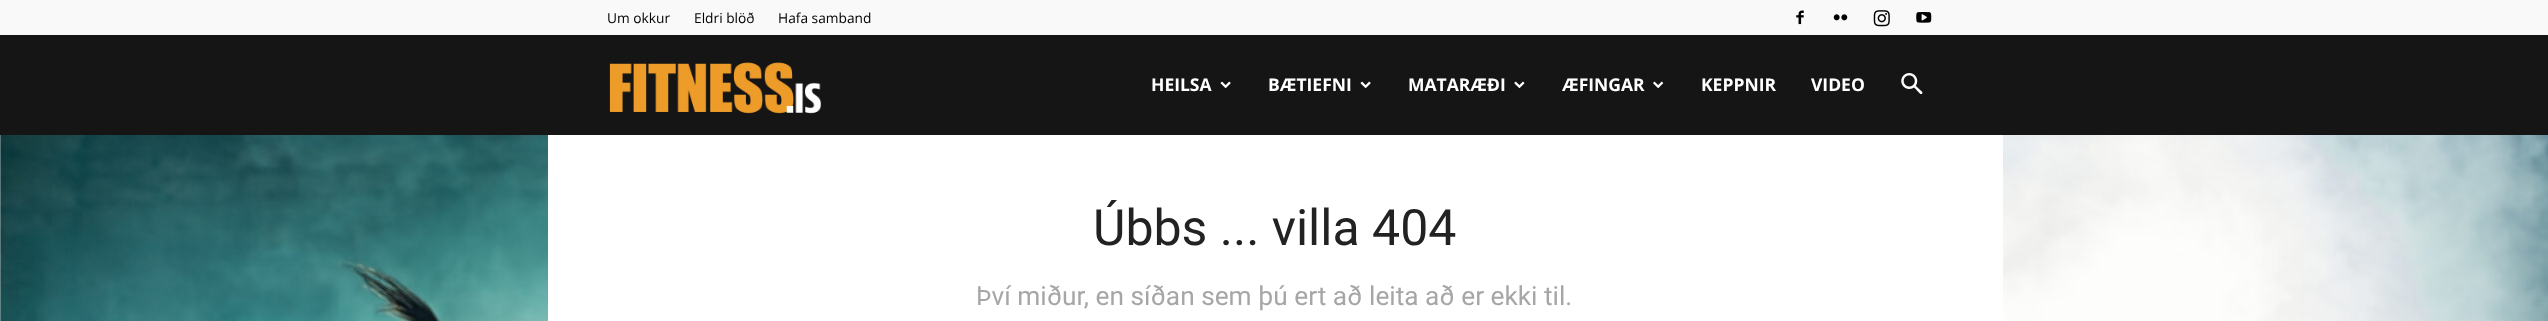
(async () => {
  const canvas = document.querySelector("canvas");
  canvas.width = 2548;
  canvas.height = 321;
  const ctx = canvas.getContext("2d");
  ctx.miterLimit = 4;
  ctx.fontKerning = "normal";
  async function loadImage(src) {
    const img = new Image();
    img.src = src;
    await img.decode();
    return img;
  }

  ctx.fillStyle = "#d8d8d8";
  ctx.fillRect(0, 0, 2548, 321);
  ctx.fillStyle = "#f9f9f9";
  ctx.fillRect(0, 0, 2548, 35);
  ctx.drawImage(await loadImage("img/1.png"), 1796, 10, 8, 15);
  ctx.drawImage(await loadImage("img/2.png"), 1833, 14, 15, 7);
  ctx.drawImage(await loadImage("img/3.png"), 1873, 10, 17, 17);
  ctx.drawImage(await loadImage("img/4.png"), 1916, 12, 16, 11);
  ctx.fillStyle = "#151515";
  ctx.fillRect(0, 35, 2548, 100);
  ctx.drawImage(await loadImage("img/5.png"), 609, 62, 213, 52);
  ctx.drawImage(await loadImage("img/6.png"), 1220, 81, 11, 8);
  ctx.drawImage(await loadImage("img/6.png"), 1360, 81, 11, 8);
  ctx.drawImage(await loadImage("img/7.png"), 1514, 81, 11, 8);
  ctx.drawImage(await loadImage("img/8.png"), 1653, 81, 11, 8);
  ctx.drawImage(await loadImage("img/9.png"), 1901, 73, 22, 22);
  ctx.drawImage(await loadImage("img/10.png"), 0, 135, 2548, 186);
  ctx.fillStyle = "#ffffff";
  ctx.fillRect(548, 135, 1455, 186);
  ctx.font = "13.75px Open Sans";
  ctx.fillStyle = "#000000";
  for (const [text, x, y] of [
    ["Um okkur", 607, 23],
    ["Eldri blöð", 694, 23],
    ["Hafa samband", 778, 23],
  ]) {
    ctx.fillText(text, x, y);
  }
  ctx.font = "bold 17.5px Open Sans";
  ctx.fillStyle = "#ffffff";
  for (const [text, x, y] of [
    ["HEILSA", 1151, 91],
    ["BÆTIEFNI", 1268, 91],
    ["MATARÆÐI", 1408, 91],
    ["ÆFINGAR", 1562, 91],
    ["KEPPNIR", 1701, 91],
    ["VIDEO", 1811, 91],
  ]) {
    ctx.fillText(text, x, y);
  }
  ctx.font = "50px Roboto";
  ctx.fillStyle = "#222222";
  ctx.fillText("Úbbs ... villa 404", 1093, 245);
  ctx.font = "26.25px Roboto";
  ctx.fillStyle = "#a6a6a6";
  ctx.fillText("Því miður, en síðan sem þú ert að leita að er ekki til.", 976, 305);
})();
